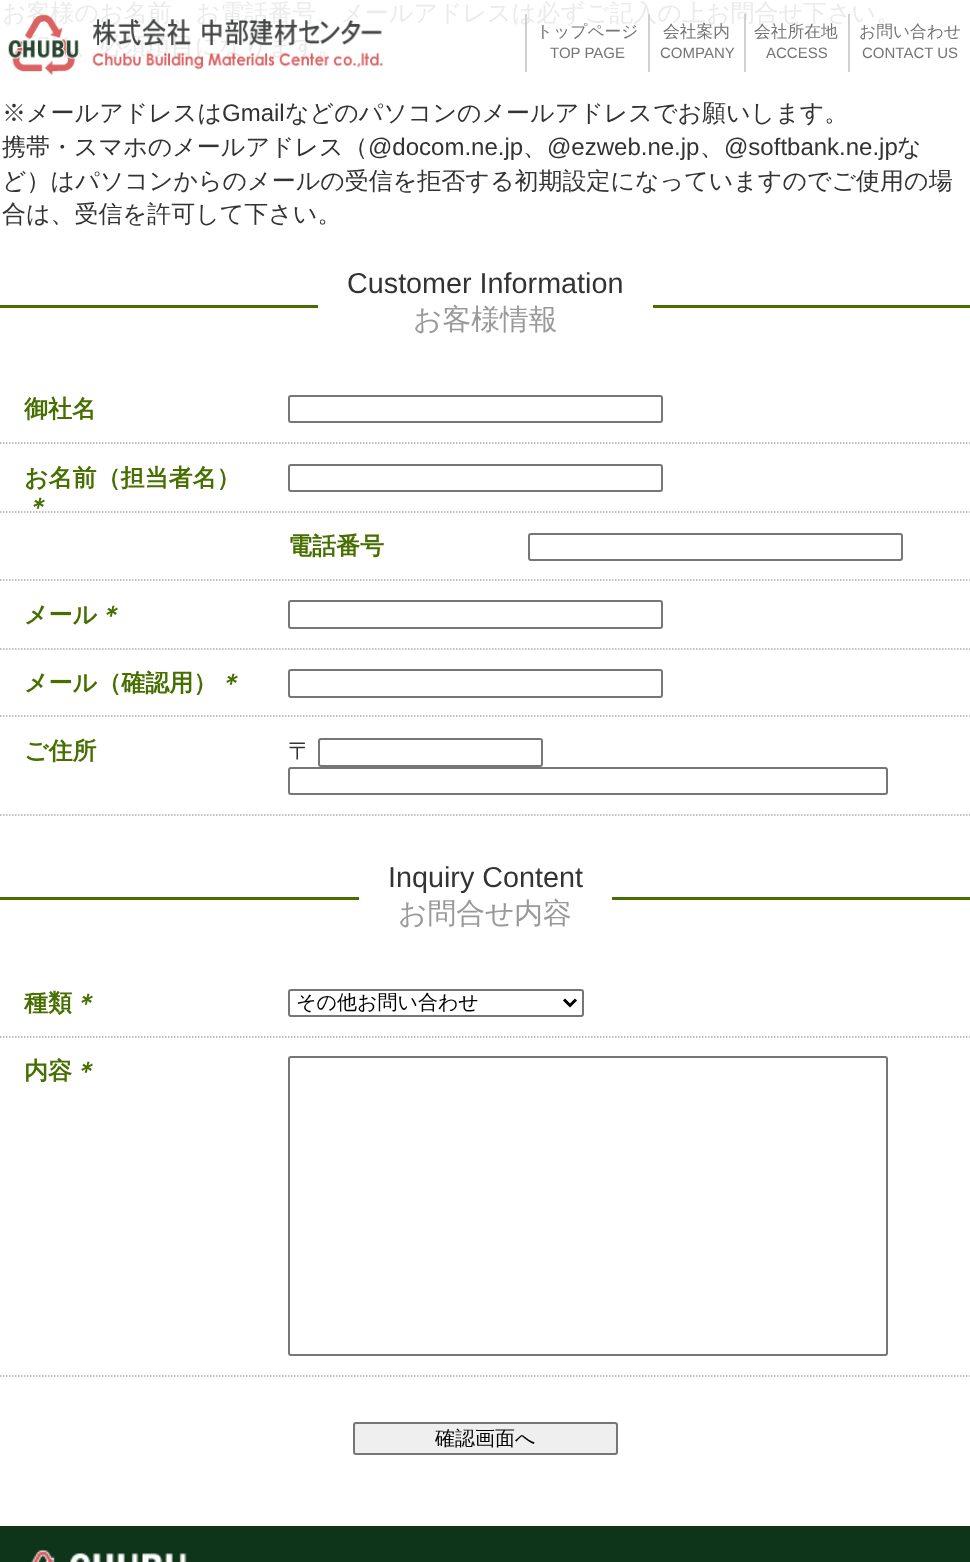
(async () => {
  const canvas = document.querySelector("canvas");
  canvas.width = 970;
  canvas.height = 1562;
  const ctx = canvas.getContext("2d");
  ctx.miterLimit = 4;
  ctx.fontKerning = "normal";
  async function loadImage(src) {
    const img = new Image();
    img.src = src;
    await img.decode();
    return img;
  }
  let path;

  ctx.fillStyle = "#ffffff";
  ctx.fillRect(0, 0, 970, 1562);
  ctx.fillStyle = "#476f00";
  ctx.fillRect(0, 305, 970, 3);
  ctx.fillStyle = "#ffffff";
  ctx.fillRect(318, 305, 335, 3);
  path = new Path2D("M0 443H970.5");
  ctx.strokeStyle = "#aaaaaa";
  ctx.lineWidth = 1.5;
  ctx.setLineDash([1.5, 1.5]);
  ctx.stroke(path);
  ctx.beginPath();
  ctx.roundRect(289, 396, 373, 26, 2);
  ctx.strokeStyle = "#767676";
  ctx.lineWidth = 2;
  ctx.setLineDash([]);
  ctx.stroke();
  path = new Path2D("M0 512H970.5");
  ctx.strokeStyle = "#aaaaaa";
  ctx.lineWidth = 1.5;
  ctx.setLineDash([1.5, 1.5]);
  ctx.stroke(path);
  ctx.beginPath();
  ctx.roundRect(289, 465, 373, 26, 2);
  ctx.strokeStyle = "#767676";
  ctx.lineWidth = 2;
  ctx.setLineDash([]);
  ctx.stroke();
  path = new Path2D("M0 580H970.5");
  ctx.strokeStyle = "#aaaaaa";
  ctx.lineWidth = 1.5;
  ctx.setLineDash([1.5, 1.5]);
  ctx.stroke(path);
  ctx.beginPath();
  ctx.roundRect(529, 534, 373, 26, 2);
  ctx.strokeStyle = "#767676";
  ctx.lineWidth = 2;
  ctx.setLineDash([]);
  ctx.stroke();
  path = new Path2D("M0 649H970.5");
  ctx.strokeStyle = "#aaaaaa";
  ctx.lineWidth = 1.5;
  ctx.setLineDash([1.5, 1.5]);
  ctx.stroke(path);
  ctx.beginPath();
  ctx.roundRect(289, 601, 373, 27, 2);
  ctx.strokeStyle = "#767676";
  ctx.lineWidth = 2;
  ctx.setLineDash([]);
  ctx.stroke();
  path = new Path2D("M0 716H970.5");
  ctx.strokeStyle = "#aaaaaa";
  ctx.lineWidth = 1.5;
  ctx.setLineDash([1.5, 1.5]);
  ctx.stroke(path);
  ctx.beginPath();
  ctx.roundRect(289, 670, 373, 27, 2);
  ctx.strokeStyle = "#767676";
  ctx.lineWidth = 2;
  ctx.setLineDash([]);
  ctx.stroke();
  path = new Path2D("M0 815H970.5");
  ctx.strokeStyle = "#aaaaaa";
  ctx.lineWidth = 1.5;
  ctx.setLineDash([1.5, 1.5]);
  ctx.stroke(path);
  ctx.beginPath();
  ctx.roundRect(319, 739, 223, 27, 2);
  ctx.strokeStyle = "#767676";
  ctx.lineWidth = 2;
  ctx.setLineDash([]);
  ctx.stroke();
  ctx.beginPath();
  ctx.roundRect(289, 768, 598, 26, 2);
  ctx.stroke();
  ctx.fillStyle = "#476f00";
  ctx.fillRect(0, 897, 970, 3);
  ctx.fillStyle = "#ffffff";
  ctx.fillRect(359, 897, 253, 3);
  path = new Path2D("M0 1037H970.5");
  ctx.strokeStyle = "#aaaaaa";
  ctx.lineWidth = 1.5;
  ctx.setLineDash([1.5, 1.5]);
  ctx.stroke(path);
  ctx.beginPath();
  ctx.roundRect(289, 990, 294, 26, 2);
  ctx.strokeStyle = "#767676";
  ctx.lineWidth = 2;
  ctx.setLineDash([]);
  ctx.stroke();
  path = new Path2D("M564 999.5L570 1005.5L576 999.5");
  ctx.strokeStyle = "#000000";
  ctx.lineWidth = 3;
  ctx.stroke(path);
  path = new Path2D("M0 1376H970.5");
  ctx.strokeStyle = "#aaaaaa";
  ctx.lineWidth = 1.5;
  ctx.setLineDash([1.5, 1.5]);
  ctx.stroke(path);
  ctx.beginPath();
  ctx.roundRect(289, 1057, 598, 298, 2);
  ctx.strokeStyle = "#767676";
  ctx.lineWidth = 2;
  ctx.setLineDash([]);
  ctx.stroke();
  ctx.fillStyle = "#efefef";
  ctx.beginPath();
  ctx.roundRect(354, 1423, 263, 31, 2);
  ctx.fill();
  ctx.stroke();
  ctx.fillStyle = "#0e341a";
  ctx.fillRect(0, 1526, 970, 36);
  ctx.drawImage(await loadImage("img/2.png"), 31, 1549, 156, 13);
  ctx.font = "500 24px WenQuanYi Zen Hei";
  ctx.fillStyle = "#ebebeb";
  ctx.fillText("お客様のお名前、お電話番号、メールアドレスは必ずご記入の上お問合せ下さい。", 2, 21);
  ctx.fillText("印は、必須項目になります。", 26, 54);
  ctx.fillStyle = "#333333";
  ctx.fillText("※メールアドレスは", 2, 121);
  ctx.font = "24px Liberation Sans";
  ctx.fillText("Gmail", 222, 121);
  ctx.font = "500 24px WenQuanYi Zen Hei";
  ctx.fillText("などのパソコンのメールアドレスでお願いします。", 285, 121);
  ctx.fillText("携帯・スマホのメールアドレス（", 2, 155);
  ctx.font = "24px Liberation Sans";
  ctx.fillText("@docom.ne.jp", 368, 155);
  ctx.font = "500 24px WenQuanYi Zen Hei";
  ctx.fillText("、", 523, 155);
  ctx.font = "24px Liberation Sans";
  ctx.fillText("@ezweb.ne.jp", 547, 155);
  ctx.font = "500 24px WenQuanYi Zen Hei";
  ctx.fillText("、", 700, 155);
  ctx.font = "24px Liberation Sans";
  ctx.fillText("@softbank.ne.jp", 724, 155);
  ctx.font = "500 24px WenQuanYi Zen Hei";
  for (const [text, x, y] of [
    ["な", 897, 155],
    ["ど）はパソコンからのメールの受信を拒否する初期設定になっていますのでご使用の場", 2, 189],
    ["合は、受信を許可して下さい。", 2, 222],
  ]) {
    ctx.fillText(text, x, y);
  }
  ctx.font = "28.75px Liberation Sans";
  ctx.fillText("Customer Information", 347, 293);
  ctx.font = "500 28.75px WenQuanYi Zen Hei";
  ctx.fillStyle = "#999999";
  ctx.fillText("お客様情報", 413, 329);
  ctx.font = "bold 24px WenQuanYi Zen Hei";
  ctx.fillStyle = "#476f00";
  ctx.fillText("御社名", 24, 417);
  ctx.fillText("お名前（担当者名）", 24, 486);
  ctx.font = "italic bold 24px WenQuanYi Zen Hei";
  ctx.fillText("＊", 24, 515);
  ctx.font = "bold 24px WenQuanYi Zen Hei";
  ctx.fillText("電話番号", 288, 554);
  ctx.fillText("メール", 24, 623);
  ctx.font = "italic bold 24px WenQuanYi Zen Hei";
  ctx.fillText("＊", 97, 623);
  ctx.font = "bold 24px WenQuanYi Zen Hei";
  ctx.fillText("メール（確認用）", 24, 691);
  ctx.font = "italic bold 24px WenQuanYi Zen Hei";
  ctx.fillText("＊", 217, 691);
  ctx.font = "bold 24px WenQuanYi Zen Hei";
  ctx.fillText("ご住所", 24, 759);
  ctx.font = "500 24px WenQuanYi Zen Hei";
  ctx.fillStyle = "#333333";
  ctx.fillText("〒", 288, 759);
  ctx.font = "28.75px Liberation Sans";
  ctx.fillText("Inquiry Content", 388, 887);
  ctx.font = "500 28.75px WenQuanYi Zen Hei";
  ctx.fillStyle = "#999999";
  ctx.fillText("お問合せ内容", 398, 923);
  ctx.font = "bold 24px WenQuanYi Zen Hei";
  ctx.fillStyle = "#476f00";
  ctx.fillText("種類", 24, 1011);
  ctx.font = "italic bold 24px WenQuanYi Zen Hei";
  ctx.fillText("＊", 72, 1011);
  ctx.font = "500 20px WenQuanYi Zen Hei";
  ctx.fillStyle = "#000000";
  ctx.fillText("その他お問い合わせ", 296, 1009);
  ctx.font = "bold 24px WenQuanYi Zen Hei";
  ctx.fillStyle = "#476f00";
  ctx.fillText("内容", 24, 1079);
  ctx.font = "italic bold 24px WenQuanYi Zen Hei";
  ctx.fillText("＊", 72, 1079);
  ctx.font = "500 20px WenQuanYi Zen Hei";
  ctx.fillStyle = "#000000";
  ctx.fillText("確認画面へ", 435, 1445);
  ctx.drawImage(await loadImage("img/1.png"), 8, 14, 375, 61);
  ctx.fillStyle = "rgba(204, 204, 204, 0.9)";
  ctx.fillRect(525, 14, 2, 58);
  ctx.font = "500 16.75px WenQuanYi Zen Hei";
  ctx.fillStyle = "#757575";
  ctx.fillText("トップページ", 536, 37);
  ctx.font = "15px Liberation Sans";
  ctx.fillText("TOP PAGE", 550, 58);
  ctx.fillStyle = "rgba(204, 204, 204, 0.9)";
  ctx.fillRect(648, 14, 2, 58);
  ctx.font = "500 16.75px WenQuanYi Zen Hei";
  ctx.fillStyle = "#757575";
  ctx.fillText("会社案内", 663, 37);
  ctx.font = "15px Liberation Sans";
  ctx.fillText("COMPANY", 660, 58);
  ctx.fillStyle = "rgba(204, 204, 204, 0.9)";
  ctx.fillRect(744, 14, 2, 58);
  ctx.font = "500 16.75px WenQuanYi Zen Hei";
  ctx.fillStyle = "#757575";
  ctx.fillText("会社所在地", 754, 37);
  ctx.font = "15px Liberation Sans";
  ctx.fillText("ACCESS", 766, 58);
  ctx.fillStyle = "#d1d1d1";
  ctx.fillRect(848, 14, 2, 58);
  ctx.font = "500 16.75px WenQuanYi Zen Hei";
  ctx.fillStyle = "#757575";
  ctx.fillText("お問い合わせ", 859, 37);
  ctx.font = "15px Liberation Sans";
  ctx.fillText("CONTACT US", 862, 58);
})();
